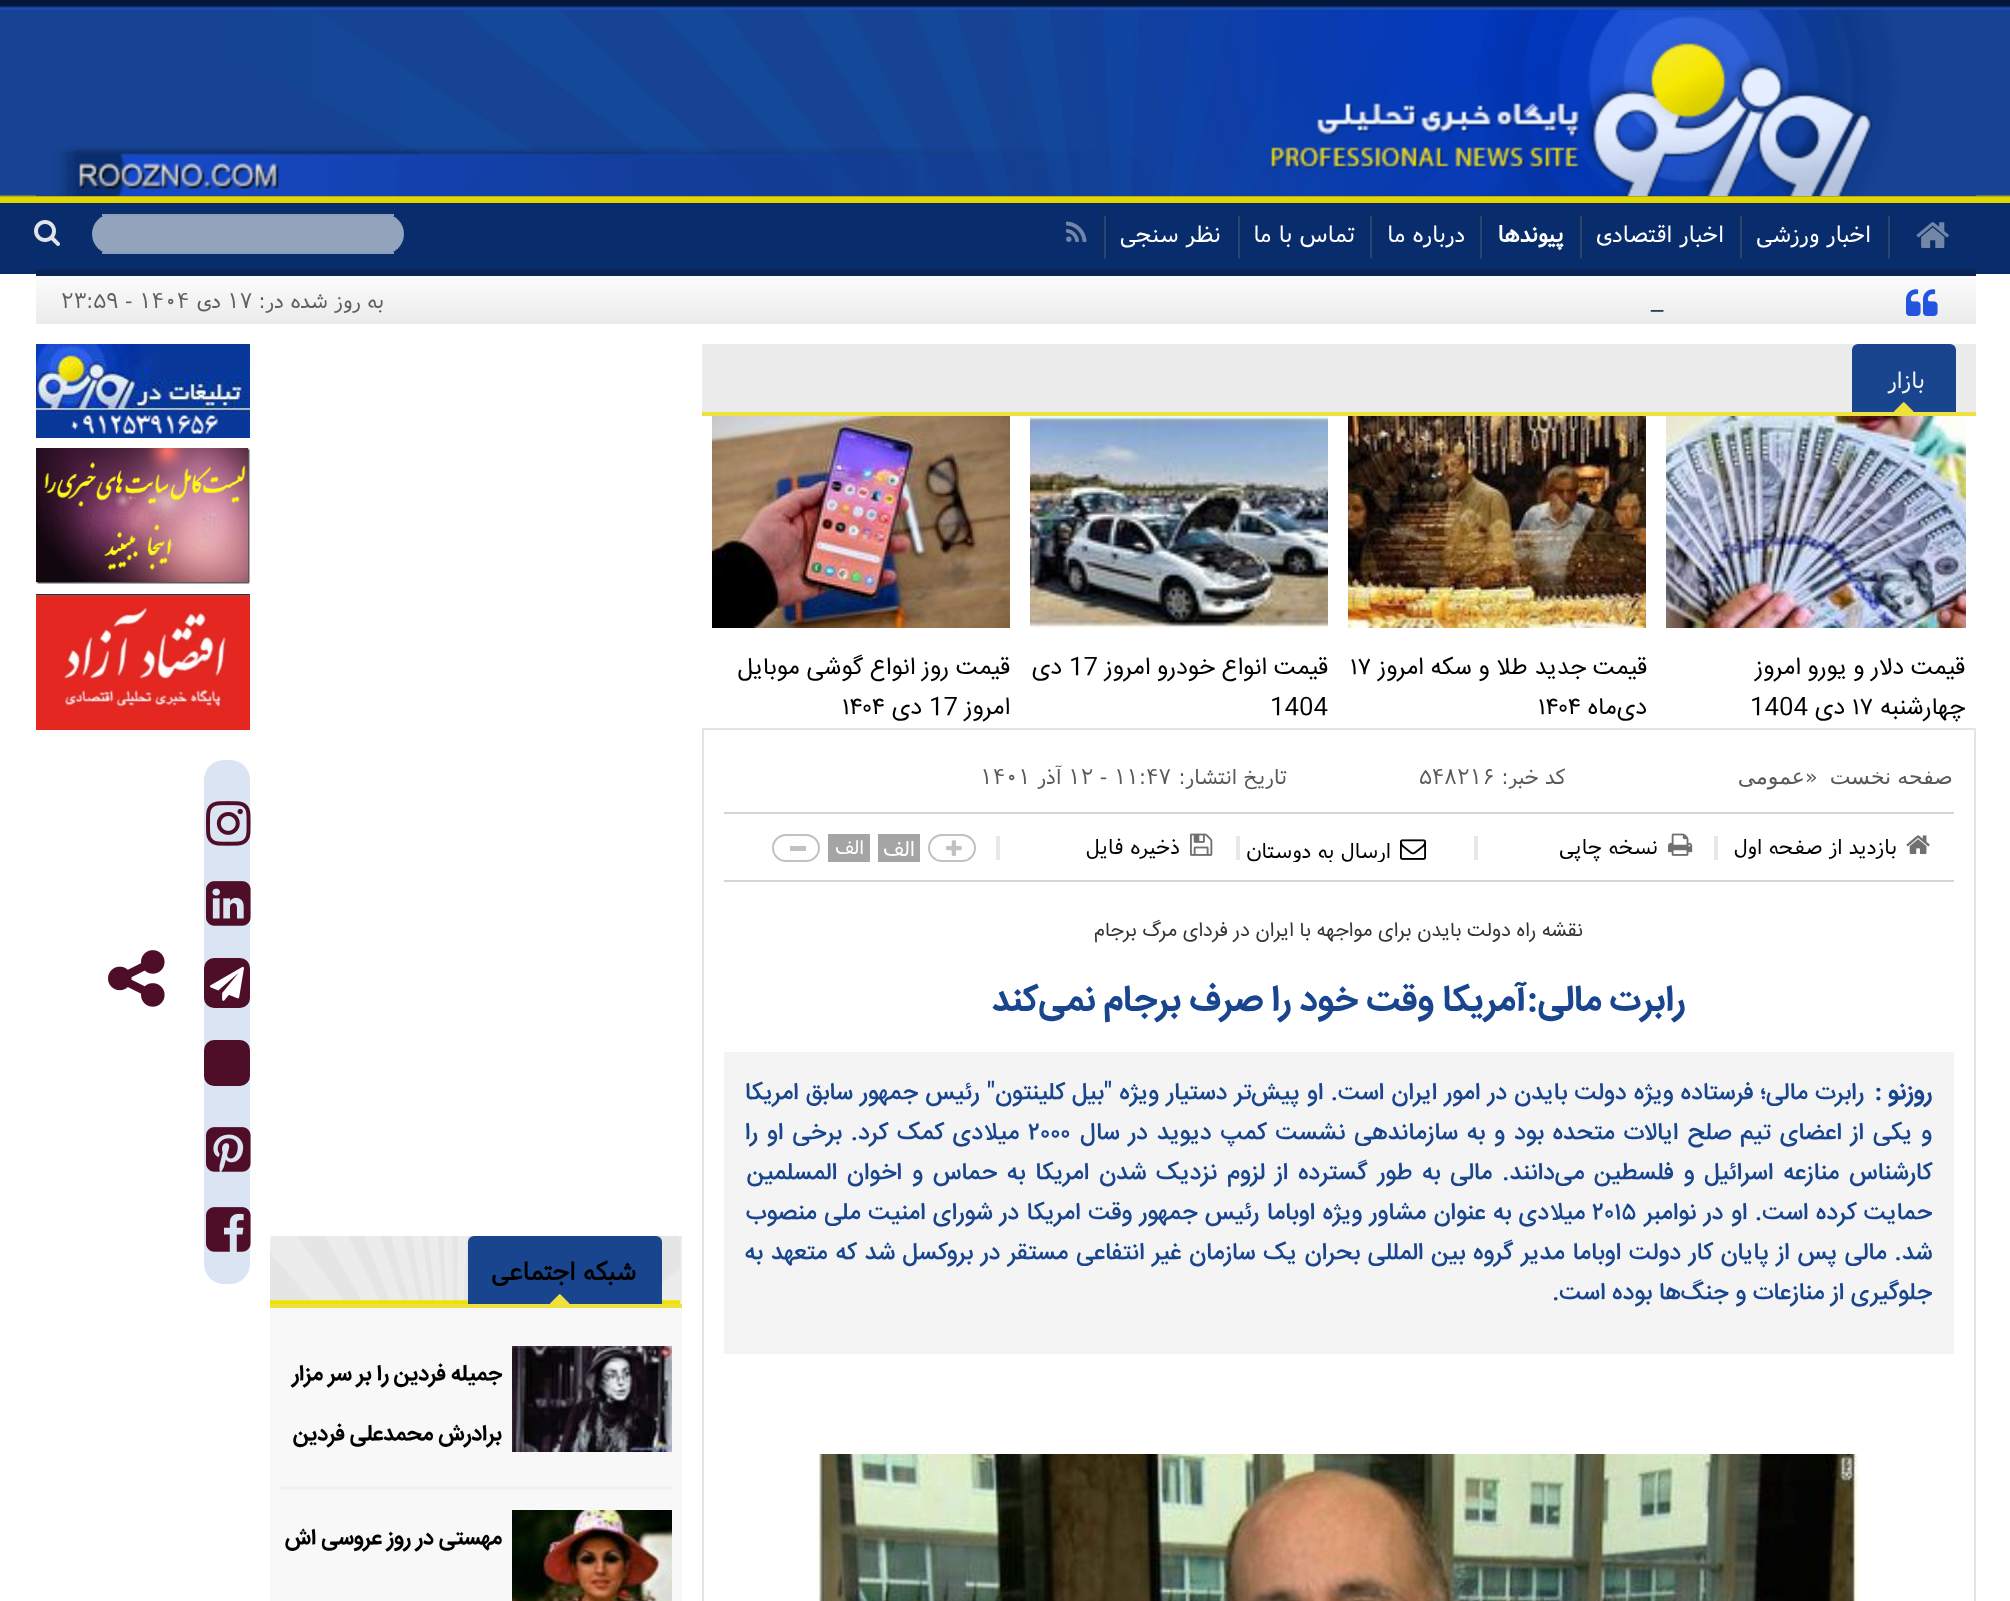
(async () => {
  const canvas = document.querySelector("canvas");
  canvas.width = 2010;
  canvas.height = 1601;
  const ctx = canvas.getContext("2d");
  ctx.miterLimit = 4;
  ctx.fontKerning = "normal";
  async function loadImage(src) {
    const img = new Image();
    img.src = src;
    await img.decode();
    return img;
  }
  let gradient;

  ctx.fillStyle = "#ffffff";
  ctx.fillRect(0, 0, 2010, 1601);
  gradient = ctx.createLinearGradient(1005, 0, 1005, 274);
  gradient.addColorStop(0, "#02173a");
  gradient.addColorStop(0.02, "#02173a");
  gradient.addColorStop(0.03, "#1f4db9");
  gradient.addColorStop(0.04, "#164393");
  gradient.addColorStop(0.71, "#164393");
  gradient.addColorStop(0.72, "#e4d700");
  gradient.addColorStop(0.74, "#e4d700");
  gradient.addColorStop(0.74, "#092d6c");
  gradient.addColorStop(1, "#092d6c");
  ctx.fillStyle = gradient;
  ctx.fillRect(0, 0, 2010, 274);
  ctx.drawImage(await loadImage("img/1.png"), 36, 10, 1940, 186);
  ctx.drawImage(await loadImage("img/2.png"), 1916, 222, 33, 26);
  for (const [x, y, w, h, color] of [
    [1888, 214, 2, 46, "#204887"],
    [1886, 214, 6, 2, "#0f2f65"],
    [1890, 214, 2, 46, "#0e2b5a"],
    [1886, 258, 6, 2, "#0f2f65"],
    [1886, 214, 2, 46, "#0e2b5a"],
    [1740, 214, 2, 46, "#204887"],
    [1738, 214, 6, 2, "#0f2f65"],
    [1742, 214, 2, 46, "#0e2b5a"],
    [1738, 258, 6, 2, "#0f2f65"],
    [1738, 214, 2, 46, "#0e2b5a"],
    [1580, 214, 2, 46, "#204887"],
    [1578, 214, 6, 2, "#0f2f65"],
    [1582, 214, 2, 46, "#0e2b5a"],
    [1578, 258, 6, 2, "#0f2f65"],
    [1578, 214, 2, 46, "#0e2b5a"],
    [1480, 214, 2, 46, "#204887"],
    [1478, 214, 6, 2, "#0f2f65"],
    [1482, 214, 2, 46, "#0e2b5a"],
    [1478, 258, 6, 2, "#0f2f65"],
    [1478, 214, 2, 46, "#0e2b5a"],
    [1370, 214, 2, 46, "#204887"],
    [1368, 214, 6, 2, "#0f2f65"],
    [1372, 214, 2, 46, "#0e2b5a"],
    [1368, 258, 6, 2, "#0f2f65"],
    [1368, 214, 2, 46, "#0e2b5a"],
    [1238, 214, 2, 46, "#204887"],
    [1236, 214, 6, 2, "#0f2f65"],
    [1240, 214, 2, 46, "#0e2b5a"],
    [1236, 258, 6, 2, "#0f2f65"],
    [1236, 214, 2, 46, "#0e2b5a"],
    [1104, 214, 2, 46, "#204887"],
    [1102, 214, 6, 2, "#0f2f65"],
    [1106, 214, 2, 46, "#0e2b5a"],
    [1102, 258, 6, 2, "#0f2f65"],
    [1102, 214, 2, 46, "#0e2b5a"],
  ]) {
    ctx.fillStyle = color;
    ctx.fillRect(x, y, w, h);
  }
  ctx.drawImage(await loadImage("img/3.png"), 1066, 221, 21, 21);
  ctx.fillStyle = "#92a3bb";
  ctx.beginPath();
  ctx.roundRect(92, 214, 312, 40, 20);
  ctx.fill();
  ctx.fillStyle = "#8d9eb7";
  ctx.fillRect(102, 214, 292, 2);
  ctx.fillRect(102, 252, 292, 2);
  ctx.drawImage(await loadImage("img/4.png"), 34, 220, 26, 26);
  gradient = ctx.createLinearGradient(1006, 268, 1006, 276);
  gradient.addColorStop(0, "#0b2f6d");
  gradient.addColorStop(0.33, "#072253");
  gradient.addColorStop(1, "#0b2655");
  ctx.fillStyle = gradient;
  ctx.fillRect(36, 268, 1940, 8);
  gradient = ctx.createLinearGradient(1006, 274, 1006, 324);
  gradient.addColorStop(0, "#fcfcfc");
  gradient.addColorStop(1, "#ebebeb");
  ctx.fillStyle = gradient;
  ctx.fillRect(36, 276, 1940, 48);
  ctx.drawImage(await loadImage("img/5.png"), 1906, 289, 32, 27);
  ctx.fillStyle = "#ebebeb";
  ctx.fillRect(702, 344, 1274, 68);
  ctx.fillStyle = "#eee13e";
  ctx.fillRect(702, 412, 1274, 4);
  ctx.fillStyle = "#18458e";
  ctx.beginPath();
  ctx.roundRect(1852, 344, 104, 68, [6, 6, 0, 0]);
  ctx.fill();
  ctx.drawImage(await loadImage("img/6.png"), 1894, 402, 20, 10);
  ctx.drawImage(await loadImage("img/7.png"), 1666, 416, 300, 212);
  ctx.drawImage(await loadImage("img/8.png"), 1348, 416, 298, 212);
  ctx.drawImage(await loadImage("img/9.png"), 1030, 416, 298, 212);
  ctx.drawImage(await loadImage("img/10.png"), 712, 416, 298, 212);
  ctx.strokeStyle = "#e4e4e4";
  ctx.lineWidth = 2;
  ctx.strokeRect(703, 729, 1272, 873);
  ctx.fillStyle = "#d5d5d5";
  ctx.fillRect(724, 812, 1230, 2);
  ctx.fillRect(724, 880, 1230, 2);
  ctx.drawImage(await loadImage("img/11.png"), 1906, 835, 24, 19);
  ctx.fillStyle = "#e7e7e7";
  ctx.fillRect(1714, 836, 4, 24);
  ctx.drawImage(await loadImage("img/12.png"), 1668, 833, 25, 23);
  ctx.fillRect(1474, 836, 4, 24);
  ctx.drawImage(await loadImage("img/13.png"), 1400, 839, 26, 21);
  ctx.fillRect(1236, 836, 4, 24);
  ctx.drawImage(await loadImage("img/14.png"), 1190, 833, 23, 23);
  ctx.fillRect(996, 836, 4, 24);
  ctx.beginPath();
  ctx.roundRect(929, 835, 46, 26, 13);
  ctx.strokeStyle = "#c1c1c1";
  ctx.stroke();
  ctx.drawImage(await loadImage("img/15.png"), 946, 840, 16, 16);
  ctx.fillStyle = "#a5a5a5";
  ctx.fillRect(878, 834, 42, 28);
  ctx.fillRect(828, 834, 42, 28);
  ctx.beginPath();
  ctx.roundRect(773, 835, 46, 26, 13);
  ctx.stroke();
  ctx.fillStyle = "#c1c1c1";
  ctx.fillRect(790, 846, 16, 5);
  ctx.fillStyle = "#f4f4f4";
  ctx.fillRect(724, 1052, 1230, 302);
  ctx.drawImage(await loadImage("img/16.png"), 818, 1454, 1040, 147);
  ctx.drawImage(await loadImage("img/17.png"), 36, 344, 214, 94);
  ctx.drawImage(await loadImage("img/18.png"), 36, 448, 214, 136);
  ctx.drawImage(await loadImage("img/19.png"), 36, 594, 214, 136);
  ctx.fillStyle = "#dbe4f3";
  ctx.beginPath();
  ctx.roundRect(204, 760, 46, 524, 20);
  ctx.fill();
  ctx.drawImage(await loadImage("img/20.png"), 206, 801, 45, 45);
  ctx.drawImage(await loadImage("img/21.png"), 206, 881, 45, 45);
  ctx.fillStyle = "#4e0e28";
  ctx.beginPath();
  ctx.roundRect(204, 958, 46, 50, 10);
  ctx.fill();
  ctx.drawImage(await loadImage("img/22.png"), 210, 966, 34, 35);
  ctx.beginPath();
  ctx.roundRect(204, 1040, 46, 46, 10);
  ctx.fill();
  ctx.drawImage(await loadImage("img/23.png"), 206, 1127, 45, 45);
  ctx.drawImage(await loadImage("img/24.png"), 206, 1207, 45, 45);
  ctx.drawImage(await loadImage("img/25.png"), 108, 950, 57, 57);
  ctx.fillStyle = "#ebebeb";
  ctx.fillRect(680, 1236, 2, 68);
  ctx.drawImage(await loadImage("img/26.png"), 270, 1236, 410, 68);
  ctx.fillStyle = "#eee13e";
  ctx.fillRect(270, 1304, 412, 4);
  ctx.fillStyle = "#18458e";
  ctx.beginPath();
  ctx.roundRect(468, 1236, 194, 68, [6, 6, 0, 0]);
  ctx.fill();
  ctx.drawImage(await loadImage("img/6.png"), 550, 1294, 20, 10);
  ctx.fillStyle = "#f8f8f8";
  ctx.fillRect(270, 1308, 412, 293);
  ctx.fillStyle = "#f1f1f1";
  ctx.fillRect(280, 1486, 392, 4);
  ctx.drawImage(await loadImage("img/27.png"), 512, 1346, 160, 106);
  ctx.drawImage(await loadImage("img/28.png"), 512, 1510, 160, 91);
  ctx.direction = "rtl";
  ctx.font = "24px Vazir";
  ctx.fillStyle = "#ffffff";
  ctx.fillText("اخبار ورزشی", 1871, 242);
  ctx.fillText("اخبار اقتصادی", 1724, 242);
  ctx.font = "bold 24px Vazir";
  ctx.fillText("پیوندها", 1564, 242);
  ctx.font = "24px Vazir";
  for (const [text, x, y] of [
    ["درباره ما", 1465, 242],
    ["تماس با ما", 1355, 242],
    ["نظر سنجی", 1221, 242],
  ]) {
    ctx.fillText(text, x, y);
  }
  ctx.direction = "ltr";
  ctx.font = "26px Vazir";
  ctx.fillStyle = "#0d3059";
  ctx.fillText("_", 1651, 306);
  ctx.direction = "rtl";
  ctx.font = "22px Vazir";
  ctx.fillStyle = "#5f5f5f";
  ctx.fillText("به روز شده در:", 384, 308);
  ctx.direction = "ltr";
  ctx.fillText("۱۷", 227, 308);
  ctx.direction = "rtl";
  ctx.fillText("دی", 221, 308);
  ctx.direction = "ltr";
  ctx.fillText("۲۳:۵۹ - ۱۴۰۴", 61, 308);
  ctx.direction = "rtl";
  ctx.font = "24px Vazir";
  ctx.fillStyle = "#eff3f7";
  ctx.fillText("بازار", 1925, 388);
  ctx.font = "24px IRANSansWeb";
  ctx.fillStyle = "#000000";
  ctx.fillText("قیمت دلار و یورو امروز", 1965, 674);
  ctx.fillText("چهارشنبه", 1965, 714);
  ctx.direction = "ltr";
  ctx.fillText("۱۷", 1852, 714);
  ctx.direction = "rtl";
  ctx.fillText("دی", 1845, 714);
  ctx.direction = "ltr";
  ctx.fillText("1404", 1750, 714);
  ctx.direction = "rtl";
  ctx.fillText("قیمت جدید طلا و سکه امروز", 1647, 674);
  ctx.direction = "ltr";
  ctx.fillText("۱۷", 1350, 674);
  ctx.direction = "rtl";
  ctx.fillText("دی‌ماه", 1647, 714);
  ctx.direction = "ltr";
  ctx.fillText("۱۴۰۴", 1538, 714);
  ctx.direction = "rtl";
  ctx.fillText("قیمت انواع خودرو امروز", 1328, 674);
  ctx.direction = "ltr";
  ctx.fillText("17", 1069, 674);
  ctx.direction = "rtl";
  ctx.fillText("دی", 1062, 674);
  ctx.direction = "ltr";
  ctx.fillText("1404", 1270, 714);
  ctx.direction = "rtl";
  ctx.fillText("قیمت روز انواع گوشی موبایل", 1010, 674);
  ctx.fillText("امروز", 1010, 714);
  ctx.direction = "ltr";
  ctx.fillText("17", 929, 714);
  ctx.direction = "rtl";
  ctx.fillText("دی", 922, 714);
  ctx.direction = "ltr";
  ctx.fillText("۱۴۰۴", 842, 714);
  ctx.wordSpacing = "-1px";
  ctx.direction = "rtl";
  ctx.font = "22px DejaVu Sans";
  ctx.fillStyle = "#595959";
  ctx.fillText("صفحه نخست", 1953, 784);
  ctx.wordSpacing = "0px";
  ctx.direction = "ltr";
  ctx.font = "22px Vazir";
  ctx.fillText("»", 1805, 784);
  ctx.direction = "rtl";
  ctx.font = "22px DejaVu Sans";
  ctx.fillText("عمومی", 1805, 784);
  ctx.font = "22px Vazir";
  ctx.fillText("کد خبر:", 1565, 784);
  ctx.direction = "ltr";
  ctx.fillText("۵۴۸۲۱۶", 1419, 784);
  ctx.direction = "rtl";
  ctx.fillText("تاریخ انتشار:", 1287, 784);
  ctx.direction = "ltr";
  ctx.fillText("۱۲ - ۱۱:۴۷", 1068, 784);
  ctx.direction = "rtl";
  ctx.fillText("آذر", 1062, 784);
  ctx.direction = "ltr";
  ctx.fillText("۱۴۰۱", 980, 784);
  ctx.direction = "rtl";
  ctx.fillStyle = "#000000";
  ctx.fillText("بازدید از صفحه اول", 1897, 854);
  ctx.fillText("نسخه چاپی", 1658, 854);
  ctx.save();
  ctx.beginPath();
  ctx.rect(1246, 830, 180, 32);
  ctx.clip();
  ctx.fillText("ارسال به دوستان", 1391, 858);
  ctx.restore();
  ctx.fillText("ذخیره فایل", 1180, 854);
  ctx.fillStyle = "#ffffff";
  ctx.fillText("الف", 915, 856);
  ctx.font = "20px Vazir";
  ctx.fillText("الف", 864, 854);
  ctx.font = "20px IRANSansWeb";
  ctx.fillStyle = "#353535";
  ctx.fillText("نقشه‌ راه دولت بایدن برای مواجهه با ایران در فردا‌ی مرگ برجام", 1583, 936);
  ctx.font = "bold 36px IRANSansWeb";
  ctx.fillStyle = "#18458e";
  ctx.fillText("رابرت مالی:آمریكا وقت خود را صرف برجام نمی‌کند", 1685, 1010);
  ctx.font = "bold 24px IRANSansWeb";
  ctx.fillText("روزنو :", 1932, 1099);
  ctx.wordSpacing = "0.6px";
  ctx.font = "500 24px IRANSansWeb";
  ctx.fillText("رابرت مالی؛ فرستاده ویژه دولت بایدن در امور ایران است. او پیش‌تر دستیار ویژه \"بیل کلینتون\" رئیس جمهور سابق امریکا", 1864, 1099);
  ctx.wordSpacing = "2.25px";
  ctx.fillText("و یکی از اعضای تیم صلح ایالات متحده بود و به سازماندهی نشست کمپ دیوید در سال", 1932, 1139);
  ctx.wordSpacing = "0px";
  ctx.direction = "ltr";
  ctx.fillText("۲۰۰۰", 1028, 1139);
  ctx.wordSpacing = "2.25px";
  ctx.direction = "rtl";
  ctx.fillText("میلادی کمک کرد. برخی او را", 1019, 1139);
  ctx.wordSpacing = "3.25px";
  ctx.fillText("کارشناس منازعه اسرائیل و فلسطین می‌دانند. مالی به طور گسترده از لزوم نزدیک شدن امریکا به حماس و اخوان المسلمین", 1932, 1179);
  ctx.wordSpacing = "0.8px";
  ctx.fillText("حمایت کرده است. او در نوامبر", 1932, 1219);
  ctx.wordSpacing = "0px";
  ctx.direction = "ltr";
  ctx.fillText("۲۰۱۵", 1592, 1219);
  ctx.wordSpacing = "0.8px";
  ctx.direction = "rtl";
  ctx.fillText("میلادی به عنوان مشاور ویژه اوباما رئیس جمهور وقت امریکا در شورای امنیت ملی منصوب", 1585, 1219);
  ctx.wordSpacing = "1.2px";
  ctx.fillText("شد. مالی پس از پایان کار دولت اوباما مدیر گروه بین المللی بحران یک سازمان غیر انتفاعی مستقر در بروکسل شد که متعهد به", 1932, 1259);
  ctx.wordSpacing = "0px";
  ctx.fillText("جلوگیری از منازعات و جنگ‌ها بوده است.", 1932, 1299);
  ctx.font = "bold 26px Vazir";
  ctx.fillStyle = "#000000";
  ctx.fillText("شبکه اجتماعی", 636, 1280);
  ctx.font = "bold 22px IRANSansWeb";
  for (const [text, x, y] of [
    ["جمیله فردین را بر سر مزار", 502, 1380],
    ["برادرش محمدعلی فردین", 502, 1440],
    ["مهستی در روز عروسی اش", 502, 1544],
  ]) {
    ctx.fillText(text, x, y);
  }
})();
